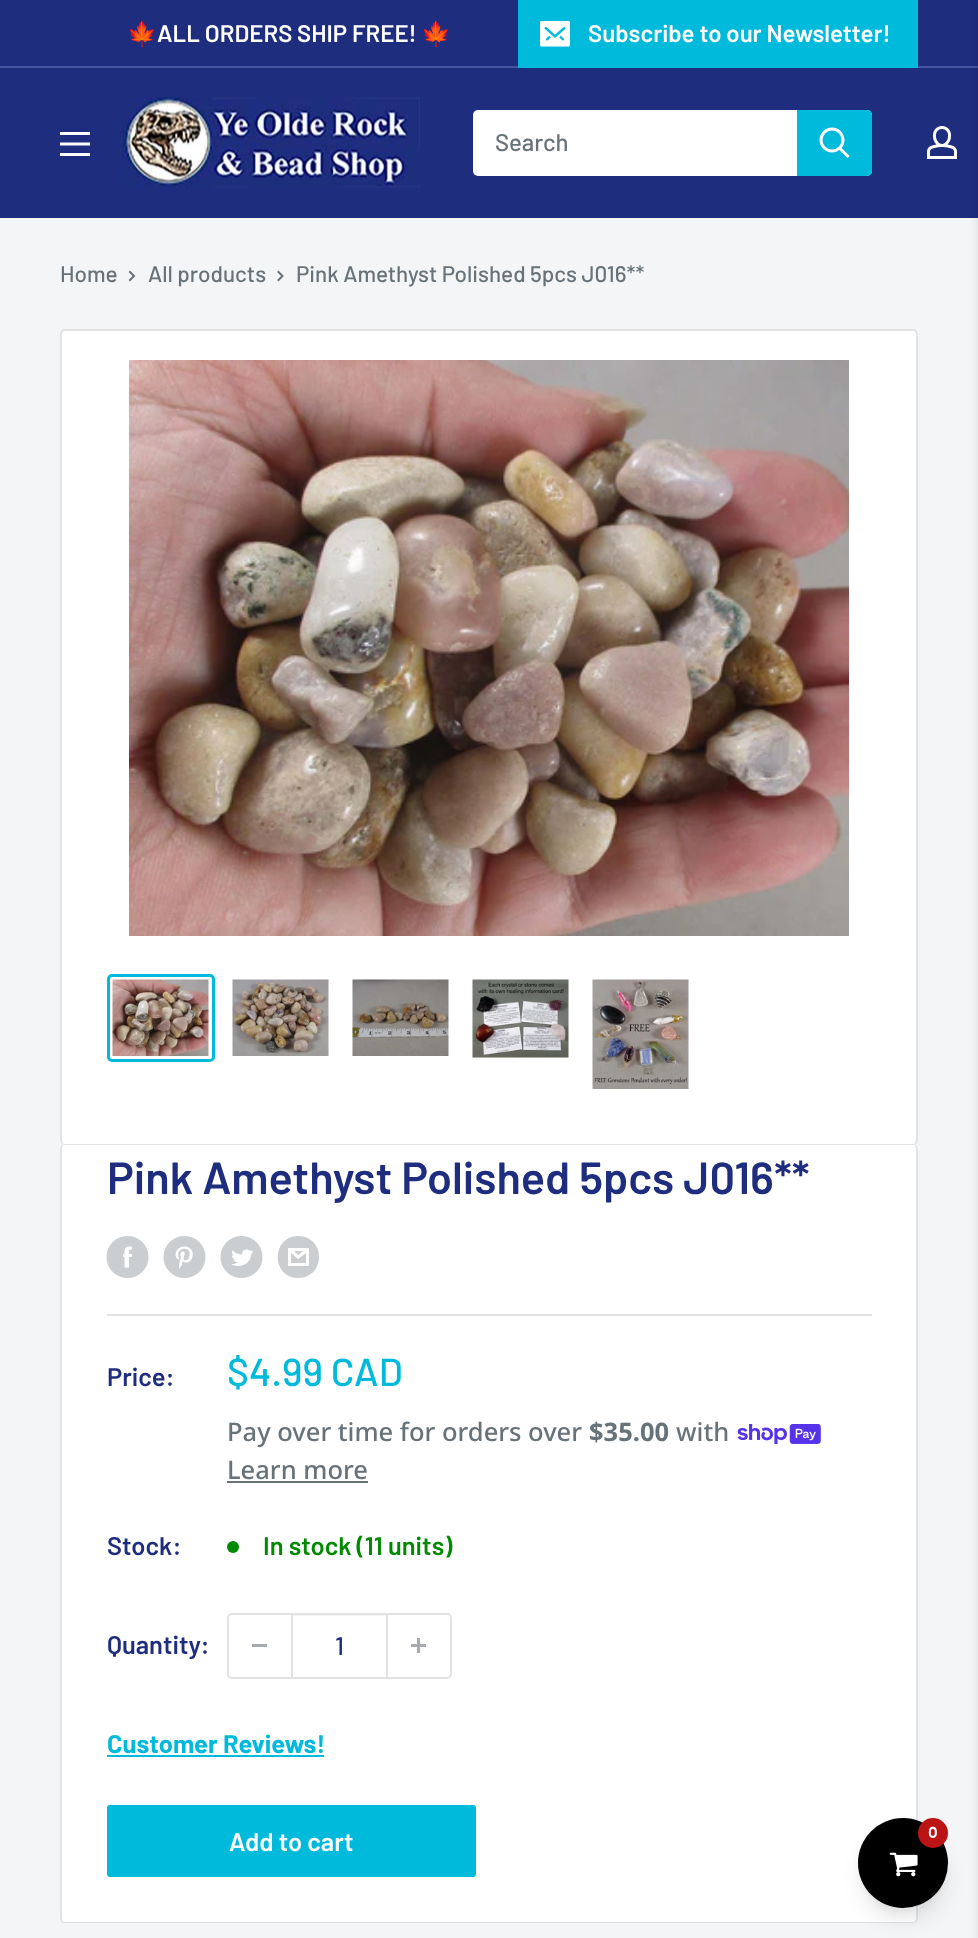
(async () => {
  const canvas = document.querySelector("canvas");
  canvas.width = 978;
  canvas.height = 1938;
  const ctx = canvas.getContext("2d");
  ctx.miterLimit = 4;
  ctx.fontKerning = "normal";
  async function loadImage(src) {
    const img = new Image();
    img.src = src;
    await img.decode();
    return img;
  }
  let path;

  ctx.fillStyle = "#f3f5f6";
  ctx.fillRect(0, 0, 978, 1938);
  for (const [x, y, w, h, color] of [
    [0, 0, 978, 66, "#1e2d7d"],
    [0, 66, 978, 2, "#46549f"],
    [518, 0, 400, 68, "#00badb"],
  ]) {
    ctx.fillStyle = color;
    ctx.fillRect(x, y, w, h);
  }
  ctx.drawImage(await loadImage("img/1.png"), 540, 21, 30, 26);
  ctx.fillStyle = "#1e2d7d";
  ctx.fillRect(0, 68, 978, 150);
  ctx.drawImage(await loadImage("img/2.png"), 60, 132, 30, 24);
  ctx.drawImage(await loadImage("img/3.png"), 120, 97, 300, 91);
  ctx.fillStyle = "#ffffff";
  ctx.beginPath();
  ctx.roundRect(473, 110, 399, 66, 5);
  ctx.fill();
  ctx.fillStyle = "#00badb";
  ctx.beginPath();
  ctx.roundRect(797, 110, 75, 66, [0, 5, 5, 0]);
  ctx.fill();
  path = new Path2D("M847.5 156L840 148.5");
  ctx.strokeStyle = "#ffffff";
  ctx.lineWidth = 3;
  ctx.lineCap = "square";
  ctx.stroke(path);
  ctx.beginPath();
  ctx.arc(832, 140, 11, 0, Math.PI * 2);
  ctx.stroke();
  ctx.drawImage(await loadImage("img/4.png"), 927, 126, 30, 33);
  path = new Path2D("M130 272L134 276L130 280");
  ctx.strokeStyle = "#677279";
  ctx.lineWidth = 2;
  ctx.stroke(path);
  path = new Path2D("M278.5 272L282.5 276L278.5 280");
  ctx.stroke(path);
  ctx.fillStyle = "#ffffff";
  ctx.beginPath();
  ctx.roundRect(61, 330, 856, 814, 4);
  ctx.fill();
  ctx.strokeStyle = "#e1e3e4";
  ctx.stroke();
  ctx.drawImage(await loadImage("img/5.png"), 129, 360, 720, 576);
  ctx.beginPath();
  ctx.roundRect(108.5, 975.5, 105, 85, 3.5);
  ctx.strokeStyle = "#00badb";
  ctx.lineWidth = 3;
  ctx.stroke();
  ctx.drawImage(await loadImage("img/6.png"), 112, 979, 97, 77);
  ctx.drawImage(await loadImage("img/7.png"), 232, 979, 97, 77);
  ctx.drawImage(await loadImage("img/8.png"), 352, 979, 97, 77);
  ctx.drawImage(await loadImage("img/9.png"), 472, 979, 97, 79);
  ctx.drawImage(await loadImage("img/10.png"), 592, 979, 97, 110);
  path = new Path2D("M65 1143C62 1143 60 1146 60 1149C60 1147 62 1144 64 1144H914C916 1144 918 1147 918 1149C918 1146 916 1143 913 1143Z");
  ctx.fill(path);
  ctx.beginPath();
  ctx.roundRect(60, 1145, 858, 778, 5);
  ctx.fill();
  ctx.fillStyle = "#e1e3e4";
  path = new Path2D("M64 1144H914C916 1144 918 1147 918 1149V1918C918 1921 916 1923 914 1923H64C62 1923 60 1921 60 1918V1149C60 1147 62 1144 64 1144ZM64 1144H914C915 1144 916 1147 916 1149V1918C916 1920 915 1922 914 1922H64C63 1922 62 1920 62 1918V1149C62 1147 63 1144 64 1144Z");
  ctx.fill(path, "evenodd");
  ctx.drawImage(await loadImage("img/11.png"), 106, 1236, 43, 42);
  ctx.drawImage(await loadImage("img/12.png"), 163, 1236, 43, 42);
  ctx.drawImage(await loadImage("img/13.png"), 220, 1236, 43, 42);
  ctx.fillStyle = "#caced0";
  path = new Path2D("M298 1278C271 1278 271 1236 298 1236C326 1236 326 1278 298 1278ZM294 1251H303L298 1255ZM306 1253V1263H291V1253L298 1259ZM309 1248H288V1266H309Z");
  ctx.fill(path);
  ctx.fillStyle = "#e1e3e4";
  ctx.fillRect(107, 1314, 765, 2);
  ctx.drawImage(await loadImage("img/14.png"), 737, 1424, 84, 21);
  ctx.fillStyle = "#677279";
  ctx.fillRect(227, 1481, 141, 2);
  ctx.fillStyle = "#008a00";
  ctx.beginPath();
  ctx.arc(233, 1547, 6, 0, Math.PI * 2);
  ctx.fill();
  ctx.beginPath();
  ctx.roundRect(228, 1614, 223, 64, 4);
  ctx.strokeStyle = "#e1e3e4";
  ctx.lineWidth = 2;
  ctx.stroke();
  for (const [x, y, w, h, color] of [
    [252, 1644, 15, 3, "#a4aaaf"],
    [293, 1615, 93, 1, "rgba(225, 227, 228, 0.4)"],
    [386, 1614, 2, 63, "#e1e3e4"],
    [291, 1614, 2, 63, "#e1e3e4"],
  ]) {
    ctx.fillStyle = color;
    ctx.fillRect(x, y, w, h);
  }
  ctx.drawImage(await loadImage("img/15.png"), 411, 1638, 15, 15);
  ctx.fillStyle = "#00badb";
  ctx.fillRect(107, 1755, 217, 2);
  ctx.beginPath();
  ctx.roundRect(107, 1805, 369, 72, 3);
  ctx.fill();
  ctx.fillStyle = "rgba(0, 0, 0, 0.05)";
  ctx.filter = "blur(4.5px)";
  ctx.beginPath();
  ctx.roundRect(861, 1827, 84, 84, 42);
  ctx.fill();
  ctx.filter = "none";
  ctx.fillStyle = "rgba(0, 0, 0, 0.1)";
  ctx.filter = "blur(11px)";
  ctx.beginPath();
  ctx.roundRect(863, 1838, 81, 81, 40.5);
  ctx.fill();
  ctx.filter = "none";
  ctx.fillStyle = "#000000";
  ctx.beginPath();
  ctx.arc(903, 1863, 45, 0, Math.PI * 2);
  ctx.fill();
  ctx.fillStyle = "#bc1414";
  ctx.beginPath();
  ctx.arc(933, 1833, 15, 0, Math.PI * 2);
  ctx.fill();
  ctx.drawImage(await loadImage("img/16.png"), 889, 1852, 29, 25);
  ctx.fillStyle = "rgba(0, 0, 0, 0.1)";
  ctx.filter = "blur(4.5px)";
  ctx.beginPath();
  ctx.rect(978, 6, 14, 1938);
  ctx.fill();
  ctx.filter = "none";
  ctx.font = "bold 24px Noto Color Emoji";
  ctx.fillStyle = "#ffffff";
  ctx.fillText("🍁", 127, 42);
  ctx.font = "600 24px Barlow";
  ctx.fillText("ALL ORDERS SHIP FREE!", 157, 42);
  ctx.font = "bold 24px Noto Color Emoji";
  ctx.fillText("🍁", 421, 42);
  ctx.font = "600 24px Barlow";
  ctx.fillText("Subscribe to our Newsletter!", 588, 42);
  ctx.font = "500 24px Barlow";
  ctx.fillStyle = "#677279";
  ctx.fillText("Search", 495, 151);
  ctx.font = "500 22.5px Barlow";
  for (const [text, x, y] of [
    ["Home", 60, 282],
    ["All products", 148, 282],
    ["Pink Amethyst Polished 5pcs J016**", 296, 282],
  ]) {
    ctx.fillText(text, x, y);
  }
  ctx.font = "600 45px Barlow";
  ctx.fillStyle = "#1e2d7d";
  ctx.fillText("Pink Amethyst Polished 5pcs J016**", 107, 1194);
  ctx.font = "600 25.5px Barlow";
  ctx.fillText("Price:", 107, 1386);
  ctx.font = "500 39px Barlow";
  ctx.fillStyle = "#00badb";
  ctx.fillText("$4.99 CAD", 227, 1386);
  ctx.font = "500 25.5px Noto Sans";
  ctx.fillStyle = "#677279";
  ctx.fillText("Pay over time for orders over", 227, 1441);
  ctx.font = "bold 25.5px Noto Sans";
  ctx.fillText("$35.00", 589, 1441);
  ctx.font = "500 25.5px Noto Sans";
  ctx.fillText("with", 676, 1441);
  ctx.fillText("Learn more", 227, 1479);
  ctx.font = "600 25.5px Barlow";
  ctx.fillStyle = "#1e2d7d";
  ctx.fillText("Stock:", 107, 1555);
  ctx.fillStyle = "#008a00";
  ctx.fillText("In stock (11 units)", 263, 1555);
  ctx.fillStyle = "#1e2d7d";
  ctx.fillText("Quantity:", 107, 1654);
  ctx.font = "500 25.5px Barlow";
  ctx.fillText("1", 335, 1655);
  ctx.font = "bold 25.5px Barlow";
  ctx.fillStyle = "#00badb";
  ctx.fillText("Customer Reviews!", 107, 1753);
  ctx.font = "600 25.5px Barlow";
  ctx.fillStyle = "#ffffff";
  ctx.fillText("Add to cart", 229, 1851);
  ctx.font = "600 15px Poppins";
  ctx.fillText("0", 928, 1838);
})();
